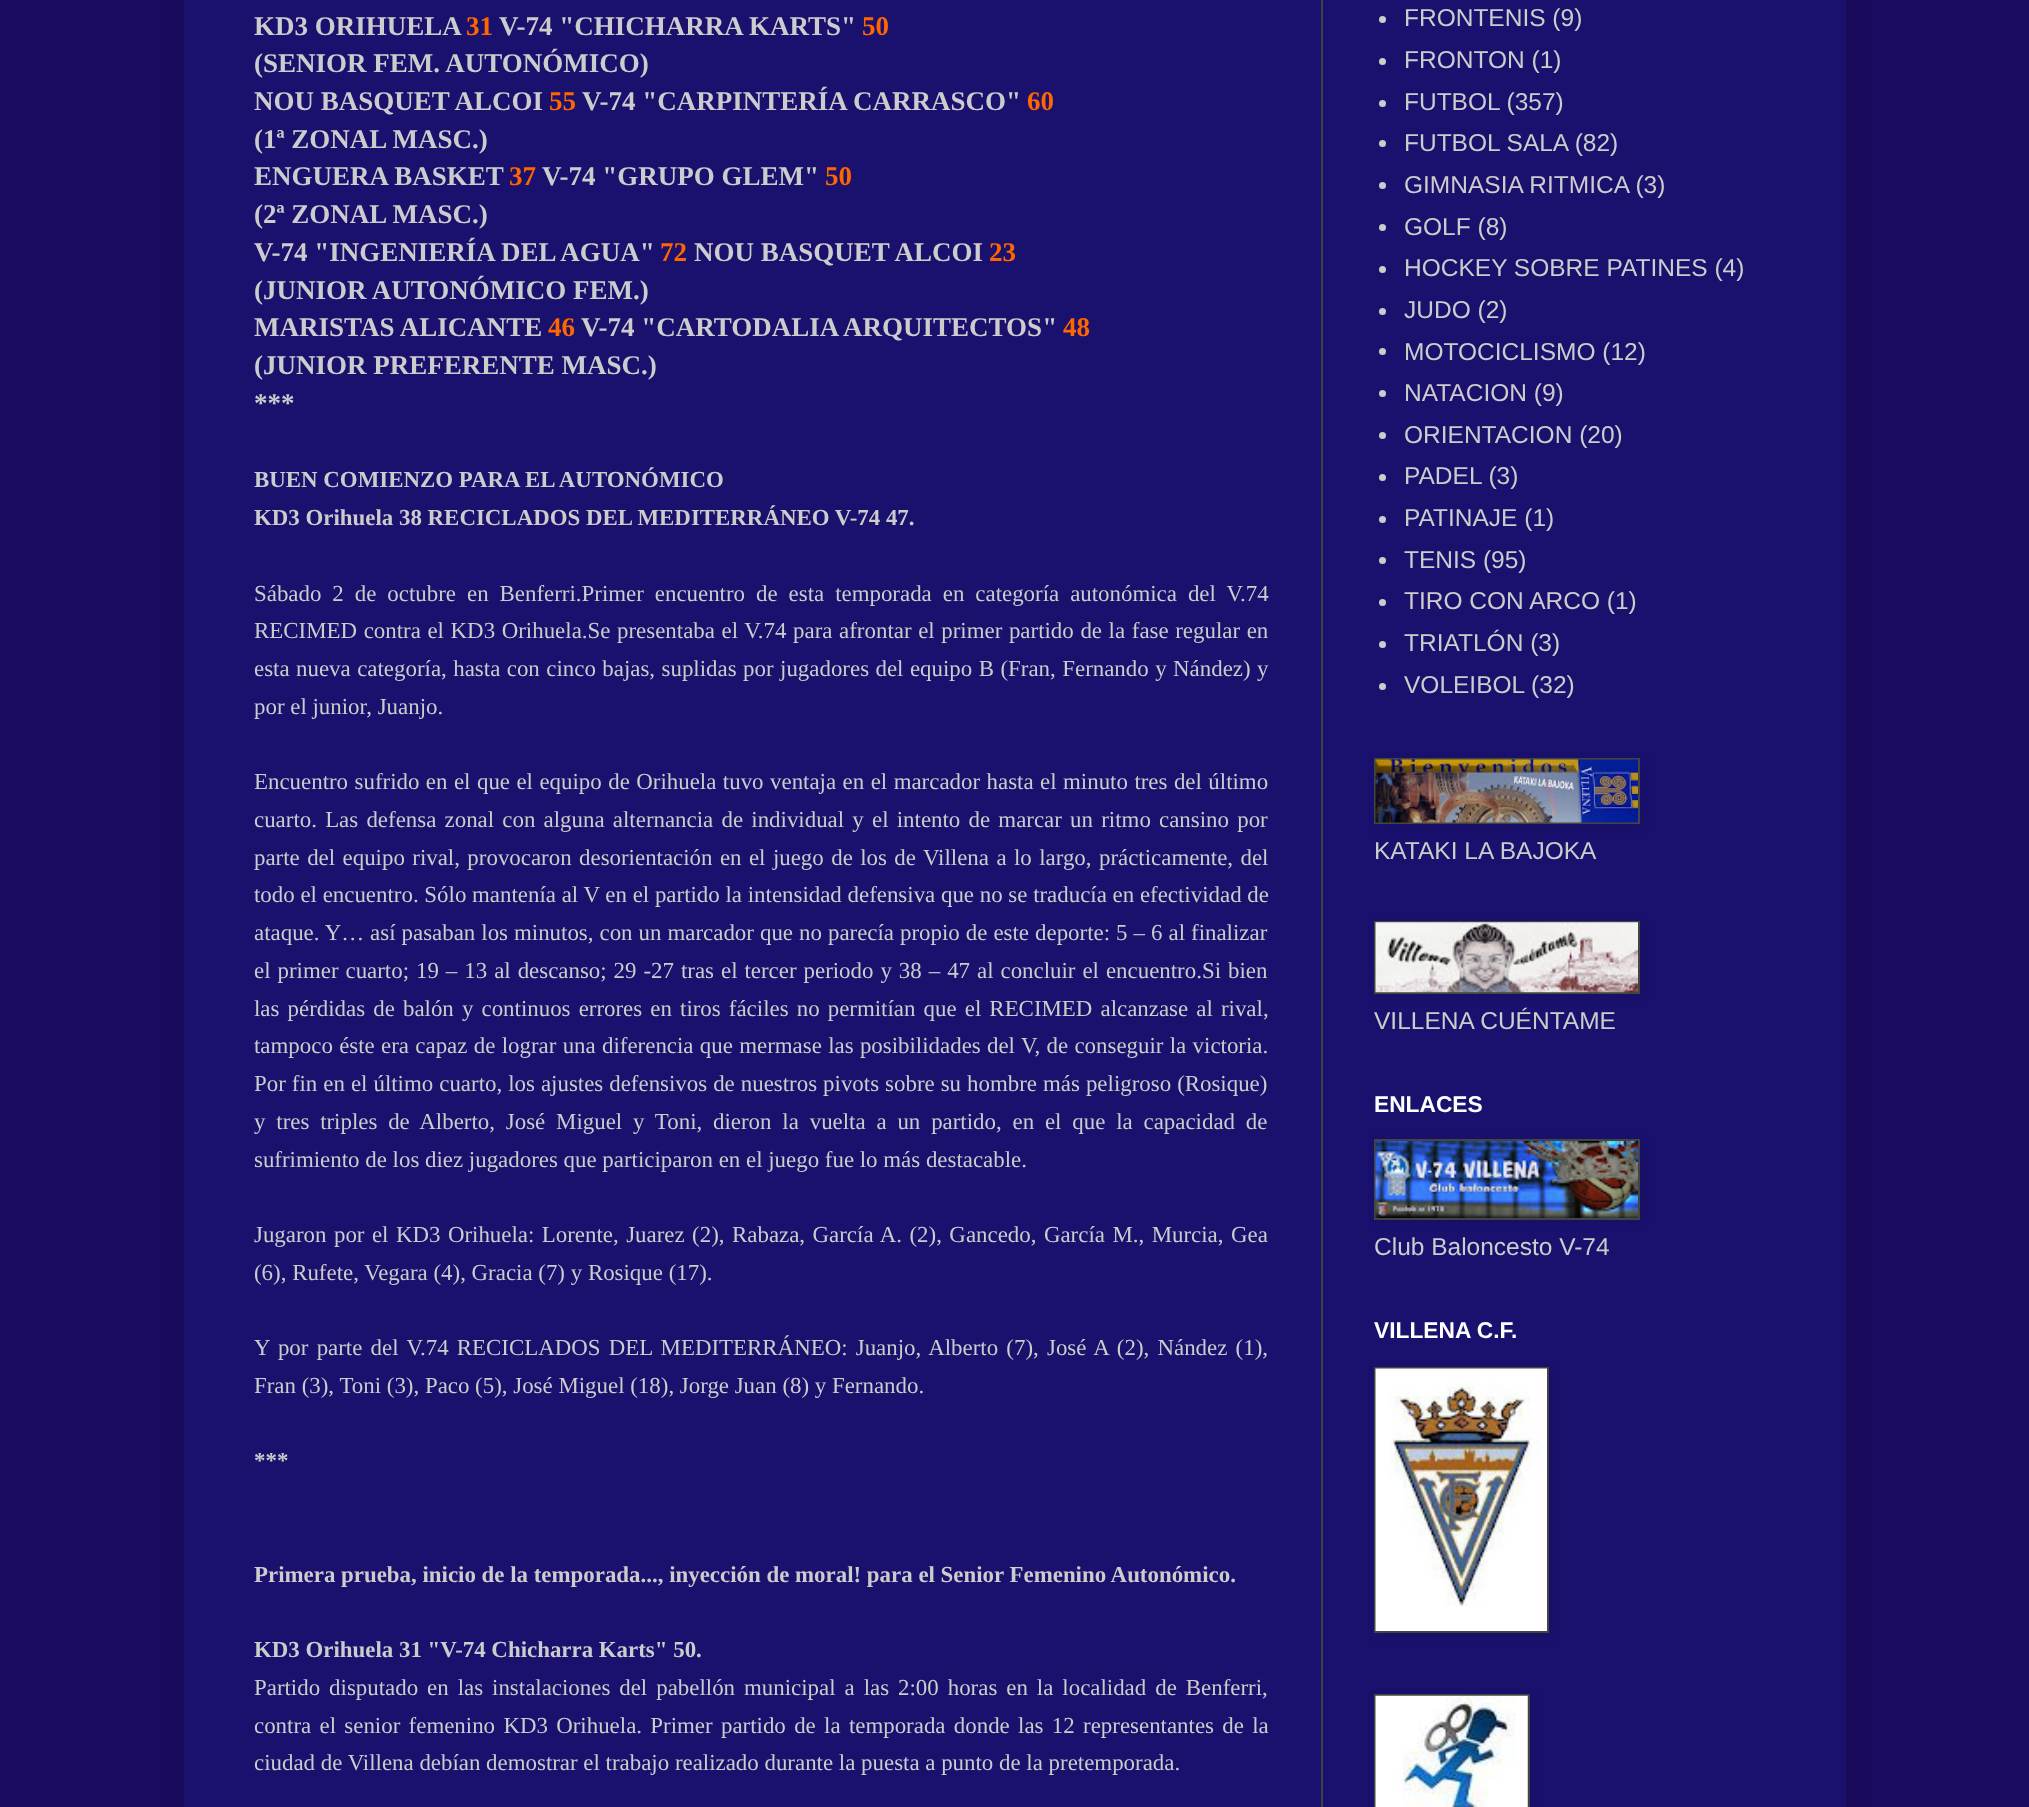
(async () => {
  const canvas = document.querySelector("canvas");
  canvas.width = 2029;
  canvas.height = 1807;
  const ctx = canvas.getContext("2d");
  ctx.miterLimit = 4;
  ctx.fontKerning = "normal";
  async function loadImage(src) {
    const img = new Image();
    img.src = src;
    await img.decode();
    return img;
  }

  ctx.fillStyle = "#1c0b61";
  ctx.fillRect(0, 0, 2029, 1807);
  ctx.fillStyle = "rgba(0, 0, 0, 0.15)";
  ctx.filter = "blur(35px)";
  ctx.beginPath();
  ctx.rect(184, -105, 1662, 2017);
  ctx.fill();
  ctx.filter = "none";
  ctx.fillStyle = "#1a116e";
  ctx.fillRect(184, 0, 1662, 1807);
  ctx.fillStyle = "#404040";
  ctx.fillRect(1321, 0, 2, 1807);
  ctx.fillStyle = "#cccccc";
  ctx.beginPath();
  ctx.arc(1382.5, 19.5, 3.5, 0, Math.PI * 2);
  ctx.fill();
  ctx.beginPath();
  ctx.arc(1382.5, 61.5, 3.5, 0, Math.PI * 2);
  ctx.fill();
  ctx.beginPath();
  ctx.arc(1382.5, 103.5, 3.5, 0, Math.PI * 2);
  ctx.fill();
  ctx.beginPath();
  ctx.arc(1382.5, 143.5, 3.5, 0, Math.PI * 2);
  ctx.fill();
  ctx.beginPath();
  ctx.arc(1382.5, 185.5, 3.5, 0, Math.PI * 2);
  ctx.fill();
  ctx.beginPath();
  ctx.arc(1382.5, 227.5, 3.5, 0, Math.PI * 2);
  ctx.fill();
  ctx.beginPath();
  ctx.arc(1382.5, 269.5, 3.5, 0, Math.PI * 2);
  ctx.fill();
  ctx.beginPath();
  ctx.arc(1382.5, 311.5, 3.5, 0, Math.PI * 2);
  ctx.fill();
  ctx.beginPath();
  ctx.arc(1382.5, 351.5, 3.5, 0, Math.PI * 2);
  ctx.fill();
  ctx.beginPath();
  ctx.arc(1382.5, 393.5, 3.5, 0, Math.PI * 2);
  ctx.fill();
  ctx.beginPath();
  ctx.arc(1382.5, 435.5, 3.5, 0, Math.PI * 2);
  ctx.fill();
  ctx.beginPath();
  ctx.arc(1382.5, 477.5, 3.5, 0, Math.PI * 2);
  ctx.fill();
  ctx.beginPath();
  ctx.arc(1382.5, 519.5, 3.5, 0, Math.PI * 2);
  ctx.fill();
  ctx.beginPath();
  ctx.arc(1382.5, 560.5, 3.5, 0, Math.PI * 2);
  ctx.fill();
  ctx.beginPath();
  ctx.arc(1382.5, 602.5, 3.5, 0, Math.PI * 2);
  ctx.fill();
  ctx.beginPath();
  ctx.arc(1382.5, 644.5, 3.5, 0, Math.PI * 2);
  ctx.fill();
  ctx.beginPath();
  ctx.arc(1382.5, 686.5, 3.5, 0, Math.PI * 2);
  ctx.fill();
  ctx.fillStyle = "rgba(0, 0, 0, 0.1)";
  ctx.filter = "blur(4.5px)";
  ctx.beginPath();
  ctx.rect(1376, 760, 266, 66);
  ctx.fill();
  ctx.filter = "none";
  ctx.fillStyle = "#444444";
  ctx.fillRect(1374, 758, 266, 66);
  ctx.drawImage(await loadImage("img/1.png"), 1375, 759, 263, 64);
  ctx.fillStyle = "rgba(0, 0, 0, 0.1)";
  ctx.filter = "blur(4.5px)";
  ctx.beginPath();
  ctx.rect(1376, 922, 266, 74);
  ctx.fill();
  ctx.filter = "none";
  ctx.fillStyle = "#444444";
  ctx.fillRect(1374, 921, 266, 73);
  ctx.drawImage(await loadImage("img/2.png"), 1375, 922, 263, 71);
  ctx.fillStyle = "rgba(0, 0, 0, 0.1)";
  ctx.filter = "blur(4.5px)";
  ctx.beginPath();
  ctx.rect(1376, 1141, 266, 81);
  ctx.fill();
  ctx.filter = "none";
  ctx.fillStyle = "#444444";
  ctx.fillRect(1374, 1139, 266, 81);
  ctx.drawImage(await loadImage("img/3.png"), 1375, 1141, 263, 77);
  ctx.fillStyle = "rgba(0, 0, 0, 0.1)";
  ctx.filter = "blur(4.5px)";
  ctx.beginPath();
  ctx.rect(1376, 1369, 175, 266);
  ctx.fill();
  ctx.filter = "none";
  ctx.fillStyle = "#444444";
  ctx.fillRect(1374, 1367, 175, 266);
  ctx.drawImage(await loadImage("img/4.png"), 1375, 1368, 172, 263);
  ctx.fillStyle = "rgba(0, 0, 0, 0.1)";
  ctx.filter = "blur(4.5px)";
  ctx.beginPath();
  ctx.rect(1376, 1696, 155, 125);
  ctx.fill();
  ctx.filter = "none";
  ctx.fillStyle = "#444444";
  ctx.fillRect(1374, 1694, 156, 113);
  ctx.drawImage(await loadImage("img/5.png"), 1375, 1695, 153, 112);
  ctx.font = "bold 27px Liberation Serif";
  ctx.fillStyle = "#cccccc";
  ctx.fillText("KD3 ORIHUELA", 254, 35);
  ctx.fillStyle = "#ff6600";
  ctx.fillText("31", 466, 35);
  ctx.fillStyle = "#cccccc";
  ctx.fillText("V-74 \"CHICHARRA KARTS\"", 499, 35);
  ctx.fillStyle = "#ff6600";
  ctx.fillText("50", 862, 35);
  ctx.fillStyle = "#cccccc";
  ctx.fillText("(SENIOR FEM. AUTONÓMICO)", 254, 72);
  ctx.fillText("NOU BASQUET ALCOI", 254, 110);
  ctx.fillStyle = "#ff6600";
  ctx.fillText("55", 549, 110);
  ctx.fillStyle = "#cccccc";
  ctx.fillText("V-74 \"CARPINTERÍA CARRASCO\"", 582, 110);
  ctx.fillStyle = "#ff6600";
  ctx.fillText("60", 1027, 110);
  ctx.fillStyle = "#cccccc";
  ctx.fillText("(1ª ZONAL MASC.)", 254, 148);
  ctx.fillText("ENGUERA BASKET", 254, 185);
  ctx.fillStyle = "#ff6600";
  ctx.fillText("37", 509, 185);
  ctx.fillStyle = "#cccccc";
  ctx.fillText("V-74 \"GRUPO GLEM\"", 542, 185);
  ctx.fillStyle = "#ff6600";
  ctx.fillText("50", 825, 185);
  ctx.fillStyle = "#cccccc";
  ctx.fillText("(2ª ZONAL MASC.)", 254, 223);
  ctx.fillText("V-74 \"INGENIERÍA DEL AGUA\"", 254, 261);
  ctx.fillStyle = "#ff6600";
  ctx.fillText("72", 660, 261);
  ctx.fillStyle = "#cccccc";
  ctx.fillText("NOU BASQUET ALCOI", 694, 261);
  ctx.fillStyle = "#ff6600";
  ctx.fillText("23", 989, 261);
  ctx.fillStyle = "#cccccc";
  ctx.fillText("(JUNIOR AUTONÓMICO FEM.)", 254, 299);
  ctx.fillText("MARISTAS ALICANTE", 254, 336);
  ctx.fillStyle = "#ff6600";
  ctx.fillText("46", 548, 336);
  ctx.fillStyle = "#cccccc";
  ctx.fillText("V-74 \"CARTODALIA ARQUITECTOS\"", 581, 336);
  ctx.fillStyle = "#ff6600";
  ctx.fillText("48", 1063, 336);
  ctx.fillStyle = "#cccccc";
  ctx.fillText("(JUNIOR PREFERENTE MASC.)", 254, 374);
  ctx.fillText("***", 254, 412);
  ctx.font = "bold 22.9px Liberation Serif";
  ctx.fillText("BUEN COMIENZO PARA EL AUTONÓMICO", 254, 487);
  ctx.fillText("KD3 Orihuela 38 RECICLADOS DEL MEDITERRÁNEO V-74 47.", 254, 525);
  ctx.wordSpacing = "5.25px";
  ctx.font = "22.9px Liberation Serif";
  ctx.fillText("Sábado 2 de octubre en Benferri.Primer encuentro de esta temporada en categoría autonómica del V.74", 254, 601);
  ctx.wordSpacing = "0.9px";
  ctx.fillText("RECIMED contra el KD3 Orihuela.Se presentaba el V.74 para afrontar el primer partido de la fase regular en", 254, 638);
  ctx.wordSpacing = "0.75px";
  ctx.fillText("esta nueva categoría, hasta con cinco bajas, suplidas por jugadores del equipo B (Fran, Fernando y Nández) y", 254, 676);
  ctx.wordSpacing = "0px";
  ctx.fillText("por el junior, Juanjo.", 254, 714);
  ctx.wordSpacing = "0.75px";
  ctx.fillText("Encuentro sufrido en el que el equipo de Orihuela tuvo ventaja en el marcador hasta el minuto tres del último", 254, 789);
  ctx.wordSpacing = "2.5px";
  ctx.fillText("cuarto. Las defensa zonal con alguna alternancia de individual y el intento de marcar un ritmo cansino por", 254, 827);
  ctx.wordSpacing = "1.7px";
  ctx.fillText("parte del equipo rival, provocaron desorientación en el juego de los de Villena a lo largo, prácticamente, del", 254, 865);
  ctx.wordSpacing = "0px";
  ctx.fillText("todo el encuentro. Sólo mantenía al V en el partido la intensidad defensiva que no se traducía en efectividad de", 254, 902);
  ctx.wordSpacing = "0.3px";
  ctx.fillText("ataque. Y… así pasaban los minutos, con un marcador que no parecía propio de este deporte: 5 – 6 al finalizar", 254, 940);
  ctx.wordSpacing = "1.25px";
  ctx.fillText("el primer cuarto; 19 – 13 al descanso; 29 -27 tras el tercer periodo y 38 – 47 al concluir el encuentro.Si bien", 254, 978);
  ctx.wordSpacing = "2.4px";
  ctx.fillText("las pérdidas de balón y continuos errores en tiros fáciles no permitían que el RECIMED alcanzase al rival,", 254, 1016);
  ctx.wordSpacing = "0.6px";
  ctx.fillText("tampoco éste era capaz de lograr una diferencia que mermase las posibilidades del V, de conseguir la victoria.", 254, 1053);
  ctx.wordSpacing = "0.3px";
  ctx.fillText("Por fin en el último cuarto, los ajustes defensivos de nuestros pivots sobre su hombre más peligroso (Rosique)", 254, 1091);
  ctx.wordSpacing = "5.1px";
  ctx.fillText("y tres triples de Alberto, José Miguel y Toni, dieron la vuelta a un partido, en el que la capacidad de", 254, 1129);
  ctx.wordSpacing = "0px";
  ctx.fillText("sufrimiento de los diez jugadores que participaron en el juego fue lo más destacable.", 254, 1167);
  ctx.wordSpacing = "1.75px";
  ctx.fillText("Jugaron por el KD3 Orihuela: Lorente, Juarez (2), Rabaza, García A. (2), Gancedo, García M., Murcia, Gea", 254, 1242);
  ctx.wordSpacing = "0px";
  ctx.fillText("(6), Rufete, Vegara (4), Gracia (7) y Rosique (17).", 254, 1280);
  ctx.wordSpacing = "2.5px";
  ctx.fillText("Y por parte del V.74 RECICLADOS DEL MEDITERRÁNEO: Juanjo, Alberto (7), José A (2), Nández (1),", 254, 1355);
  ctx.wordSpacing = "0px";
  ctx.fillText("Fran (3), Toni (3), Paco (5), José Miguel (18), Jorge Juan (8) y Fernando.", 254, 1393);
  ctx.font = "bold 22.9px Liberation Serif";
  for (const [text, x, y] of [
    ["***", 254, 1468],
    ["Primera prueba, inicio de la temporada..., inyección de moral! para el Senior Femenino Autonómico.", 254, 1582],
    ["KD3 Orihuela 31 \"V-74 Chicharra Karts\" 50.", 254, 1657],
  ]) {
    ctx.fillText(text, x, y);
  }
  ctx.wordSpacing = "3.25px";
  ctx.font = "22.9px Liberation Serif";
  ctx.fillText("Partido disputado en las instalaciones del pabellón municipal a las 2:00 horas en la localidad de Benferri,", 254, 1695);
  ctx.wordSpacing = "2.6px";
  ctx.fillText("contra el senior femenino KD3 Orihuela. Primer partido de la temporada donde las 12 representantes de la", 254, 1733);
  ctx.wordSpacing = "0px";
  ctx.fillText("ciudad de Villena debían demostrar el trabajo realizado durante la puesta a punto de la pretemporada.", 254, 1770);
  ctx.font = "24.5px Liberation Sans";
  for (const [text, x, y] of [
    ["FRONTENIS (9)", 1404, 26],
    ["FRONTON (1)", 1404, 68],
    ["FUTBOL (357)", 1404, 110],
    ["FUTBOL SALA (82)", 1404, 151],
    ["GIMNASIA RITMICA (3)", 1404, 193],
    ["GOLF (8)", 1404, 235],
    ["HOCKEY SOBRE PATINES (4)", 1404, 276],
    ["JUDO (2)", 1404, 318],
    ["MOTOCICLISMO (12)", 1404, 360],
    ["NATACION (9)", 1404, 401],
    ["ORIENTACION (20)", 1404, 443],
    ["PADEL (3)", 1404, 484],
    ["PATINAJE (1)", 1404, 526],
    ["TENIS (95)", 1404, 568],
    ["TIRO CON ARCO (1)", 1404, 609],
    ["TRIATLÓN (3)", 1404, 651],
    ["VOLEIBOL (32)", 1404, 693],
    ["KATAKI LA BAJOKA", 1374, 859],
    ["VILLENA CUÉNTAME", 1374, 1029],
  ]) {
    ctx.fillText(text, x, y);
  }
  ctx.font = "bold 22.75px Liberation Sans";
  ctx.fillStyle = "#ffffff";
  ctx.fillText("ENLACES", 1374, 1112);
  ctx.font = "24.5px Liberation Sans";
  ctx.fillStyle = "#cccccc";
  ctx.fillText("Club Baloncesto V-74", 1374, 1255);
  ctx.font = "bold 22.75px Liberation Sans";
  ctx.fillStyle = "#ffffff";
  ctx.fillText("VILLENA C.F.", 1374, 1338);
})();
